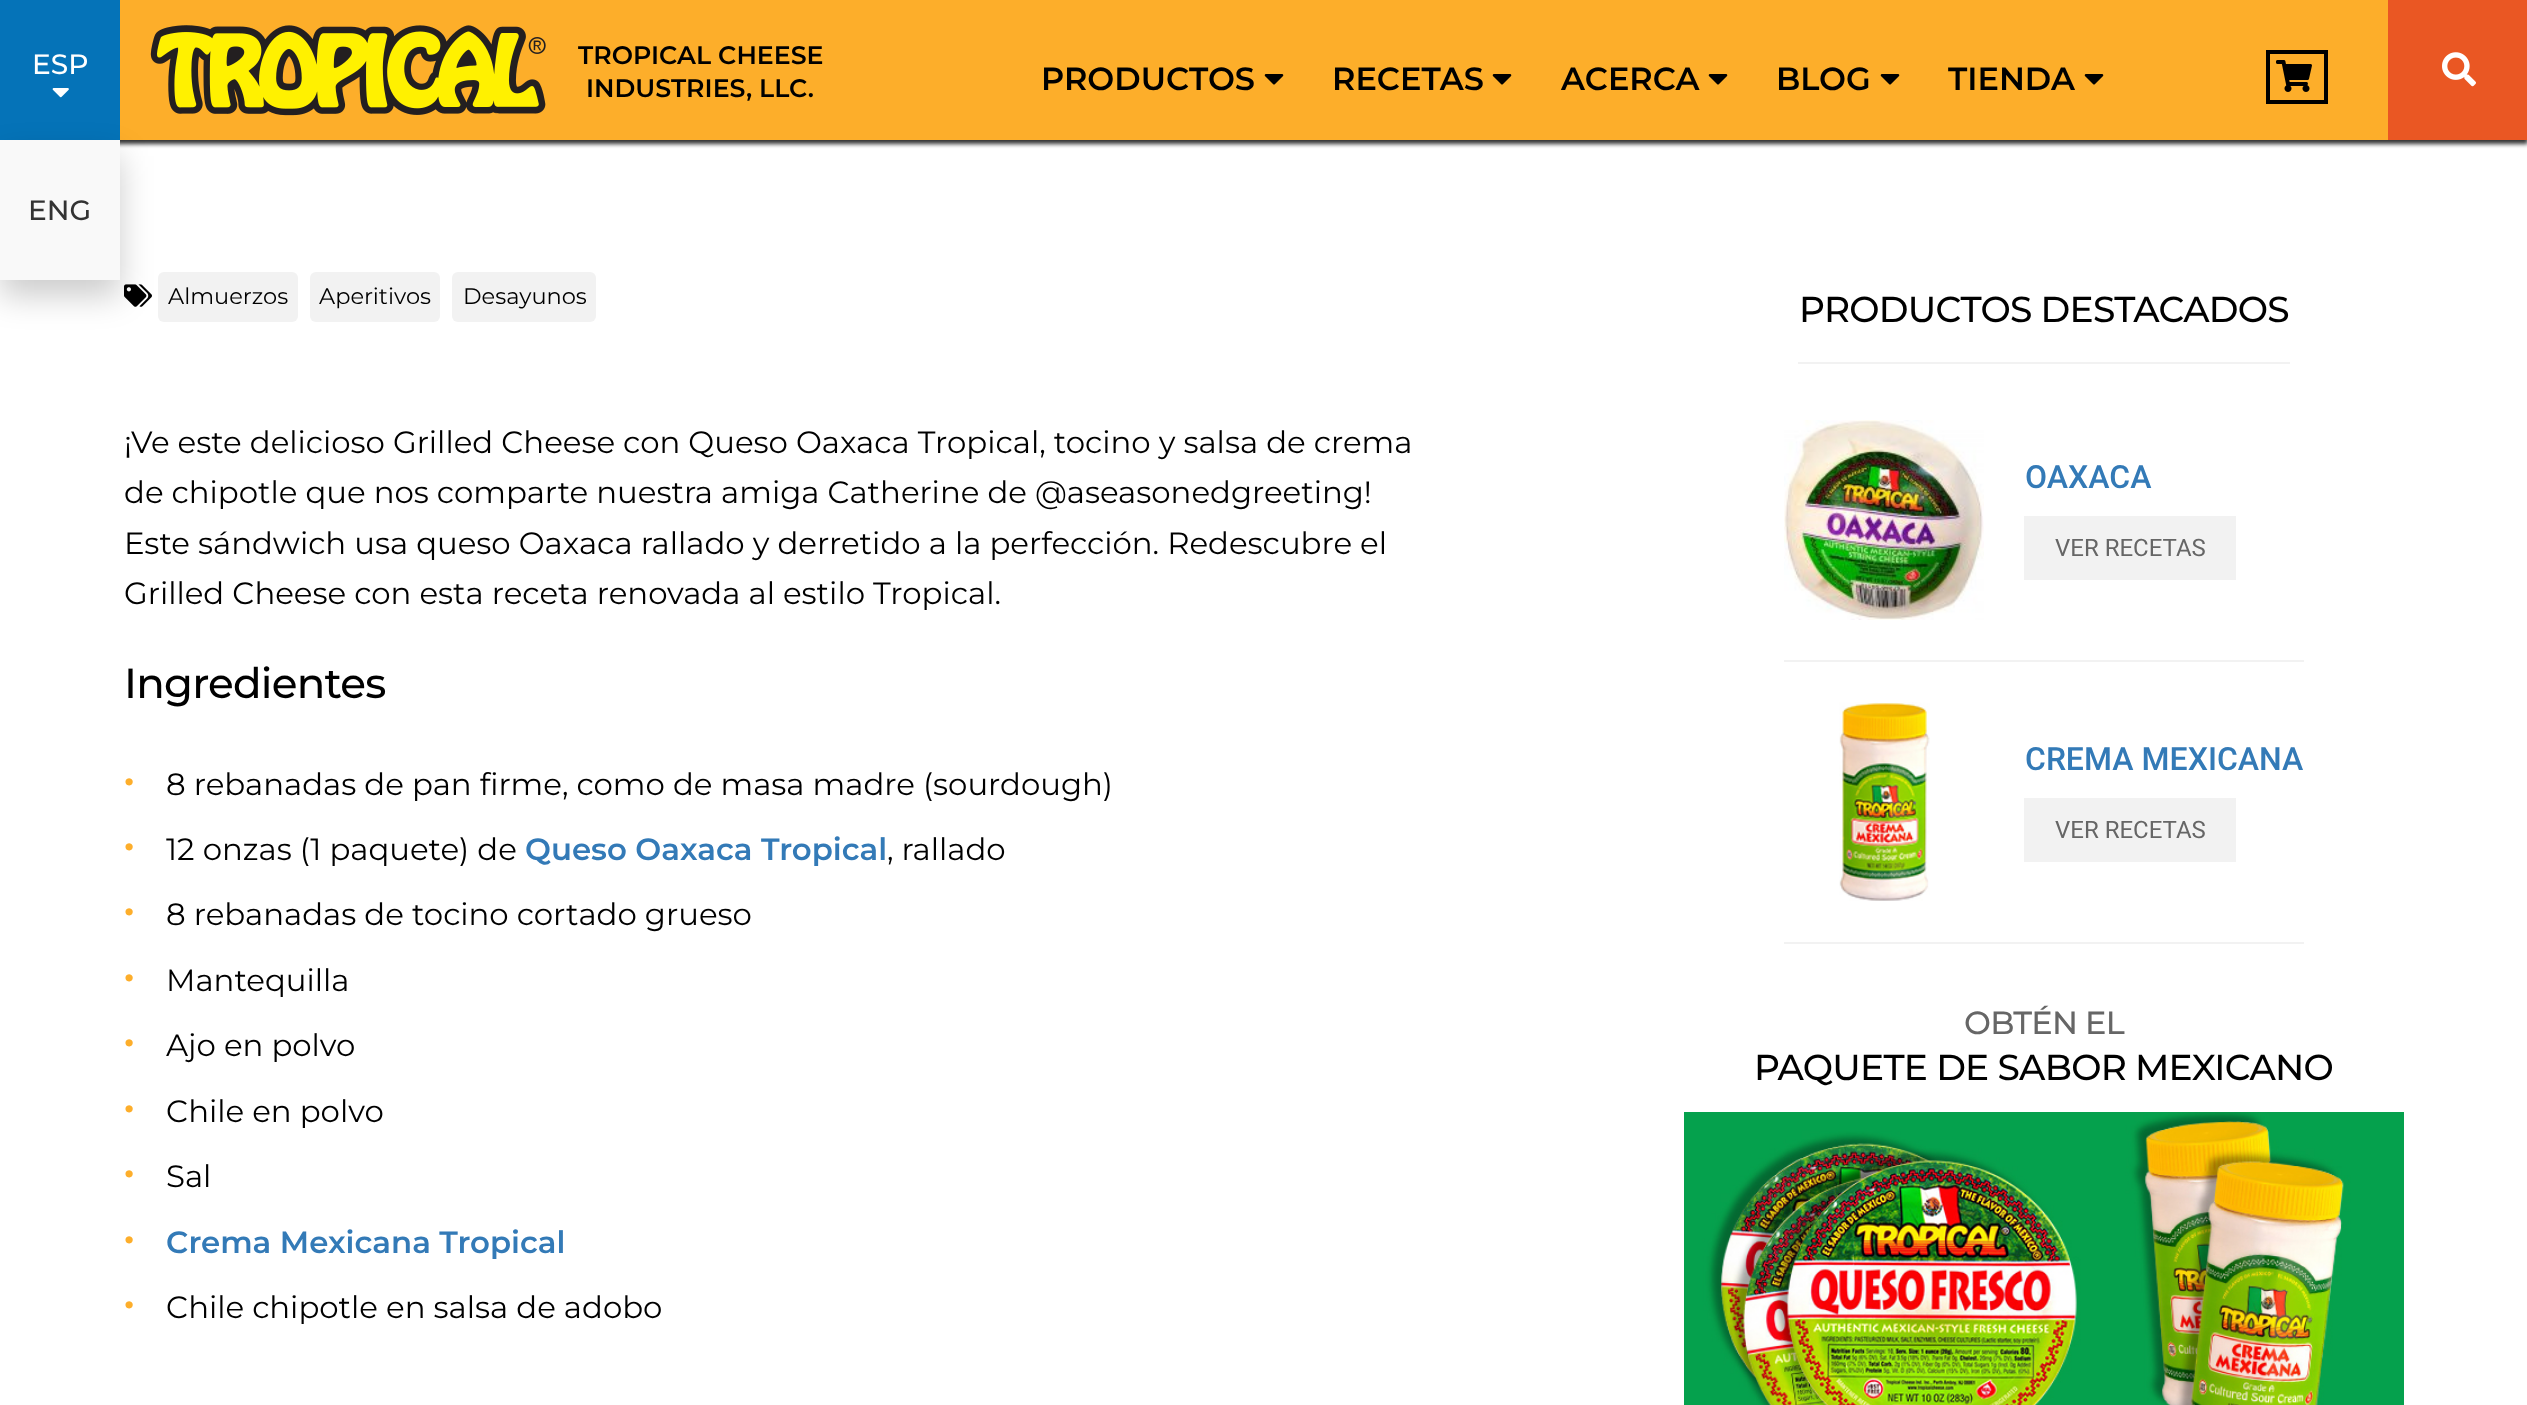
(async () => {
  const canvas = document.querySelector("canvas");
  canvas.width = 2527;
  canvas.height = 1405;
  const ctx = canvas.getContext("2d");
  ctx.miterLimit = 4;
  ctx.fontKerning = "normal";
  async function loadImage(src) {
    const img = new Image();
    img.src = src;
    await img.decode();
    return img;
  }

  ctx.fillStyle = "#ffffff";
  ctx.fillRect(0, 0, 2527, 1405);
  ctx.fillStyle = "#333333";
  ctx.filter = "blur(2px)";
  ctx.beginPath();
  ctx.rect(0, 4, 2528, 140);
  ctx.fill();
  ctx.filter = "none";
  ctx.fillStyle = "#fdae2a";
  ctx.fillRect(120, 0, 2268, 140);
  ctx.fillStyle = "#0573b8";
  ctx.fillRect(0, 0, 120, 140);
  ctx.drawImage(await loadImage("img/1.png"), 52, 88, 17, 10);
  ctx.drawImage(await loadImage("img/2.png"), 150, 25, 396, 91);
  ctx.drawImage(await loadImage("img/6.png"), 124, 284, 28, 23);
  ctx.fillStyle = "#f2f2f2";
  ctx.beginPath();
  ctx.roundRect(158, 272, 140, 50, 6);
  ctx.fill();
  ctx.fillStyle = "rgba(0, 0, 0, 0.2)";
  ctx.filter = "blur(16px)";
  ctx.beginPath();
  ctx.rect(0, 156, 120, 140);
  ctx.fill();
  ctx.filter = "none";
  ctx.fillStyle = "#f9f9f9";
  ctx.fillRect(0, 140, 120, 140);
  ctx.drawImage(await loadImage("img/3.png"), 1264, 74, 20, 11);
  ctx.drawImage(await loadImage("img/3.png"), 1492, 74, 20, 11);
  ctx.drawImage(await loadImage("img/3.png"), 1708, 74, 20, 11);
  ctx.drawImage(await loadImage("img/3.png"), 1880, 74, 20, 11);
  ctx.drawImage(await loadImage("img/3.png"), 2084, 74, 20, 11);
  ctx.fillStyle = "#ea5723";
  ctx.fillRect(2388, 0, 139, 140);
  ctx.drawImage(await loadImage("img/4.png"), 2442, 52, 34, 35);
  ctx.strokeStyle = "#000000";
  ctx.lineWidth = 4;
  ctx.strokeRect(2268, 52, 58, 50);
  ctx.drawImage(await loadImage("img/5.png"), 2276, 60, 36, 32);
  ctx.fillStyle = "#f2f2f2";
  ctx.beginPath();
  ctx.roundRect(310, 272, 130, 50, 6);
  ctx.fill();
  ctx.beginPath();
  ctx.roundRect(452, 272, 144, 50, 6);
  ctx.fill();
  ctx.fillRect(1798, 362, 492, 2);
  ctx.fillRect(1784, 660, 520, 2);
  ctx.drawImage(await loadImage("img/7.png"), 1784, 420, 200, 200);
  ctx.fillRect(2024, 516, 212, 64);
  ctx.fillRect(1784, 942, 520, 2);
  ctx.drawImage(await loadImage("img/8.png"), 1839, 702, 91, 199);
  ctx.fillRect(2024, 798, 212, 64);
  ctx.drawImage(await loadImage("img/9.png"), 1684, 1112, 720, 293);
  ctx.font = "100 28px 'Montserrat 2'";
  ctx.fillStyle = "#ffffff";
  ctx.fillText("ESP", 32, 74);
  ctx.fillStyle = "#333333";
  ctx.fillText("ENG", 28, 220);
  ctx.font = "100 25.25px 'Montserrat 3'";
  ctx.fillStyle = "#000000";
  ctx.fillText("TROPICAL CHEESE", 578, 64);
  ctx.fillText("INDUSTRIES, LLC.", 586, 97);
  ctx.font = "100 32px 'Montserrat 3'";
  for (const [text, x, y] of [
    ["PRODUCTOS", 1041, 90],
    ["RECETAS", 1332, 90],
    ["ACERCA", 1561, 90],
    ["BLOG", 1776, 90],
    ["TIENDA", 1948, 90],
  ]) {
    ctx.fillText(text, x, y);
  }
  ctx.font = "100 22.5px Montserrat";
  for (const [text, x, y] of [
    ["Almuerzos", 168, 304],
    ["Aperitivos", 319, 304],
    ["Desayunos", 463, 304],
  ]) {
    ctx.fillText(text, x, y);
  }
  ctx.font = "100 30.8px Montserrat";
  for (const [text, x, y] of [
    ["¡Ve este delicioso Grilled Cheese con Queso Oaxaca Tropical, tocino y salsa de crema", 124, 453],
    ["de chipotle que nos comparte nuestra amiga Catherine de @aseasonedgreeting!", 124, 503],
    ["Este sándwich usa queso Oaxaca rallado y derretido a la perfección. Redescubre el", 124, 554],
    ["Grilled Cheese con esta receta renovada al estilo Tropical.", 124, 604],
  ]) {
    ctx.fillText(text, x, y);
  }
  ctx.letterSpacing = "-0.8px";
  ctx.font = "100 42px 'Montserrat 2'";
  ctx.fillText("Ingredientes", 124, 698);
  ctx.letterSpacing = "0px";
  ctx.font = "100 48px Montserrat";
  ctx.fillStyle = "#fdae2b";
  ctx.fillText("•", 122, 795);
  ctx.font = "100 30.8px Montserrat";
  ctx.fillStyle = "#000000";
  ctx.fillText("8 rebanadas de pan firme, como de masa madre (sourdough)", 166, 795);
  ctx.font = "100 48px Montserrat";
  ctx.fillStyle = "#fdae2b";
  ctx.fillText("•", 122, 860);
  ctx.font = "100 30.8px Montserrat";
  ctx.fillStyle = "#000000";
  ctx.fillText("12 onzas (1 paquete) de", 166, 860);
  ctx.font = "100 30.8px 'Montserrat 3'";
  ctx.fillStyle = "#337ab7";
  ctx.fillText("Queso Oaxaca Tropical", 525, 860);
  ctx.font = "100 30.8px Montserrat";
  ctx.fillStyle = "#000000";
  ctx.fillText(", rallado", 887, 860);
  ctx.font = "100 48px Montserrat";
  ctx.fillStyle = "#fdae2b";
  ctx.fillText("•", 122, 925);
  ctx.font = "100 30.8px Montserrat";
  ctx.fillStyle = "#000000";
  ctx.fillText("8 rebanadas de tocino cortado grueso", 166, 925);
  ctx.font = "100 48px Montserrat";
  ctx.fillStyle = "#fdae2b";
  ctx.fillText("•", 122, 991);
  ctx.font = "100 30.8px Montserrat";
  ctx.fillStyle = "#000000";
  ctx.fillText("Mantequilla", 166, 991);
  ctx.font = "100 48px Montserrat";
  ctx.fillStyle = "#fdae2b";
  ctx.fillText("•", 122, 1056);
  ctx.font = "100 30.8px Montserrat";
  ctx.fillStyle = "#000000";
  ctx.fillText("Ajo en polvo", 166, 1056);
  ctx.font = "100 48px Montserrat";
  ctx.fillStyle = "#fdae2b";
  ctx.fillText("•", 122, 1122);
  ctx.font = "100 30.8px Montserrat";
  ctx.fillStyle = "#000000";
  ctx.fillText("Chile en polvo", 166, 1122);
  ctx.font = "100 48px Montserrat";
  ctx.fillStyle = "#fdae2b";
  ctx.fillText("•", 122, 1187);
  ctx.font = "100 30.8px Montserrat";
  ctx.fillStyle = "#000000";
  ctx.fillText("Sal", 166, 1187);
  ctx.font = "100 48px Montserrat";
  ctx.fillStyle = "#fdae2b";
  ctx.fillText("•", 122, 1253);
  ctx.font = "100 30.8px 'Montserrat 3'";
  ctx.fillStyle = "#337ab7";
  ctx.fillText("Crema Mexicana Tropical", 166, 1253);
  ctx.font = "100 48px Montserrat";
  ctx.fillStyle = "#fdae2b";
  ctx.fillText("•", 122, 1318);
  ctx.font = "100 30.8px Montserrat";
  ctx.fillStyle = "#000000";
  ctx.fillText("Chile chipotle en salsa de adobo", 166, 1318);
  ctx.letterSpacing = "-0.75px";
  ctx.font = "100 36px 'Montserrat 2'";
  ctx.fillText("PRODUCTOS DESTACADOS", 1799, 322);
  ctx.letterSpacing = "0px";
  ctx.font = "500 32px Roboto";
  ctx.fillStyle = "#337ab7";
  ctx.fillText("OAXACA", 2025, 488);
  ctx.font = "24px Roboto";
  ctx.fillStyle = "#666666";
  ctx.fillText("VER RECETAS", 2055, 556);
  ctx.font = "500 32px Roboto";
  ctx.fillStyle = "#337ab7";
  ctx.fillText("CREMA MEXICANA", 2025, 770);
  ctx.font = "24px Roboto";
  ctx.fillStyle = "#666666";
  ctx.fillText("VER RECETAS", 2055, 838);
  ctx.letterSpacing = "-0.75px";
  ctx.font = "100 32px 'Montserrat 2'";
  ctx.fillText("OBTÉN EL", 1964, 1034);
  ctx.font = "100 36px 'Montserrat 2'";
  ctx.fillStyle = "#000000";
  ctx.fillText("PAQUETE DE SABOR MEXICANO", 1754, 1080);
})();
